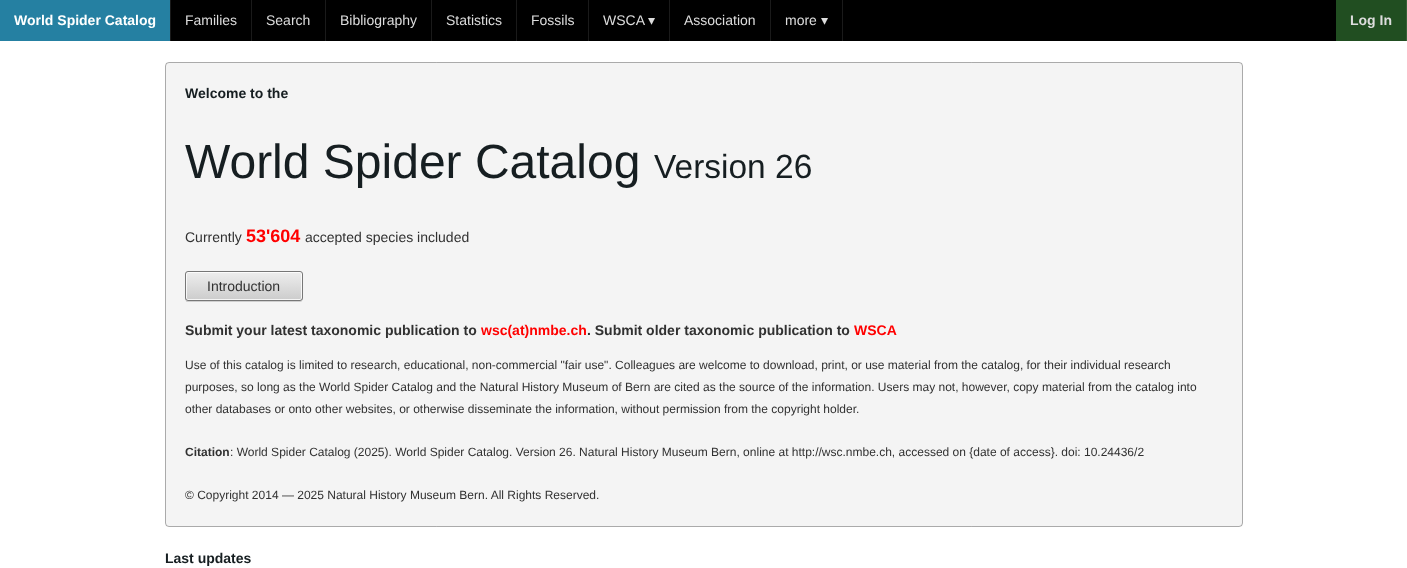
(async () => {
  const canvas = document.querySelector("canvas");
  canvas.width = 1407;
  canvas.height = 568;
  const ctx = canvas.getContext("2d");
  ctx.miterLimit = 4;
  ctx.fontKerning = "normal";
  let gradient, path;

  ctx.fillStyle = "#ffffff";
  ctx.fillRect(0, 0, 1407, 568);
  for (const [x, y, w, h, color] of [
    [171, 0, 1165, 41, "#000000"],
    [170, 0, 1, 41, "#1a1a1a"],
    [0, 0, 170, 41, "#2580a2"],
    [251, 0, 1, 41, "#1a1a1a"],
    [325, 0, 1, 41, "#1a1a1a"],
    [431, 0, 1, 41, "#1a1a1a"],
    [516, 0, 1, 41, "#1a1a1a"],
    [588, 0, 1, 41, "#1a1a1a"],
    [669, 0, 1, 41, "#1a1a1a"],
    [770, 0, 1, 41, "#1a1a1a"],
    [842, 0, 1, 41, "#1a1a1a"],
    [1336, 0, 70, 41, "#214e21"],
    [1406, 0, 1, 41, "#376037"],
  ]) {
    ctx.fillStyle = color;
    ctx.fillRect(x, y, w, h);
  }
  ctx.fillStyle = "#f4f4f4";
  ctx.beginPath();
  ctx.roundRect(165, 62, 1078, 465, 4);
  ctx.fill();
  ctx.beginPath();
  ctx.roundRect(165.5, 62.5, 1077, 464, 3.5);
  ctx.strokeStyle = "rgba(0, 0, 0, 0.3)";
  ctx.stroke();
  ctx.fillStyle = "#cfcfcf";
  path = new Path2D("M185 298C185 300 186 302 187 302H300C302 302 303 300 303 298C303 300 302 301 300 301H188C186 301 185 300 185 298Z");
  ctx.fill(path);
  ctx.save();
  ctx.beginPath();
  ctx.roundRect(185, 271, 118, 30, 3);
  ctx.clip();
  gradient = ctx.createLinearGradient(244, 272, 244, 300);
  gradient.addColorStop(0, "#eeeeee");
  gradient.addColorStop(1, "#cccccc");
  ctx.fillStyle = gradient;
  ctx.fillRect(185, 272, 118, 28);
  ctx.restore();
  ctx.beginPath();
  ctx.roundRect(186.5, 272.5, 115, 27, 1.5);
  ctx.strokeStyle = "rgba(255, 255, 255, 0.8)";
  ctx.stroke();
  ctx.beginPath();
  ctx.roundRect(185.5, 271.5, 117, 29, 2.5);
  ctx.strokeStyle = "#777777";
  ctx.stroke();
  ctx.font = "bold 14px Liberation Sans";
  ctx.fillStyle = "#ffffff";
  ctx.fillText("World Spider Catalog", 14, 25);
  ctx.font = "14px Liberation Sans";
  ctx.fillStyle = "#dddddd";
  for (const [text, x, y] of [
    ["Families", 185, 25],
    ["Search", 266, 25],
    ["Bibliography", 340, 25],
    ["Statistics", 446, 25],
    ["Fossils", 531, 25],
    ["WSCA", 603, 25],
  ]) {
    ctx.fillText(text, x, y);
  }
  ctx.font = "14px DejaVu Sans";
  ctx.fillText("▾", 648, 25);
  ctx.font = "14px Liberation Sans";
  ctx.fillText("Association", 684, 25);
  ctx.fillText("more", 785, 25);
  ctx.font = "14px DejaVu Sans";
  ctx.fillText("▾", 821, 25);
  ctx.font = "bold 14px Liberation Sans";
  ctx.fillText("Log In", 1350, 25);
  ctx.fillStyle = "#161e21";
  ctx.fillText("Welcome to the", 185, 98);
  ctx.font = "48px Liberation Sans";
  ctx.fillText("World Spider Catalog", 185, 178);
  ctx.font = "33.5px Liberation Sans";
  ctx.fillText("Version 26", 654, 178);
  ctx.font = "14px Liberation Sans";
  ctx.fillStyle = "#313131";
  ctx.fillText("Currently", 185, 242);
  ctx.font = "bold 18px Liberation Sans";
  ctx.fillStyle = "#ff0000";
  ctx.fillText("53'604", 246, 242);
  ctx.font = "14px Liberation Sans";
  ctx.fillStyle = "#313131";
  ctx.fillText("accepted species included", 305, 242);
  ctx.fillText("Introduction", 207, 291);
  ctx.font = "bold 14px Liberation Sans";
  ctx.fillText("Submit your latest taxonomic publication to", 185, 335);
  ctx.fillStyle = "#ff0000";
  ctx.fillText("wsc(at)nmbe.ch", 481, 335);
  ctx.fillStyle = "#313131";
  ctx.fillText(". Submit older taxonomic publication to", 587, 335);
  ctx.fillStyle = "#ff0000";
  ctx.fillText("WSCA", 854, 335);
  ctx.font = "12px Liberation Sans";
  ctx.fillStyle = "#313131";
  for (const [text, x, y] of [
    ["Use of this catalog is limited to research, educational, non-commercial \"fair use\". Colleagues are welcome to download, print, or use material from the catalog, for their individual research", 185, 369],
    ["purposes, so long as the World Spider Catalog and the Natural History Museum of Bern are cited as the source of the information. Users may not, however, copy material from the catalog into", 185, 391],
    ["other databases or onto other websites, or otherwise disseminate the information, without permission from the copyright holder.", 185, 413],
  ]) {
    ctx.fillText(text, x, y);
  }
  ctx.font = "bold 12px Liberation Sans";
  ctx.fillText("Citation", 185, 456);
  ctx.font = "12px Liberation Sans";
  ctx.fillText(": World Spider Catalog (2025). World Spider Catalog. Version 26. Natural History Museum Bern, online at http://wsc.nmbe.ch, accessed on {date of access}. doi: 10.24436/2", 230, 456);
  ctx.fillText("© Copyright 2014 — 2025 Natural History Museum Bern. All Rights Reserved.", 185, 499);
  ctx.font = "bold 14px Liberation Sans";
  ctx.fillStyle = "#161e21";
  ctx.fillText("Last updates", 165, 563);
})();
